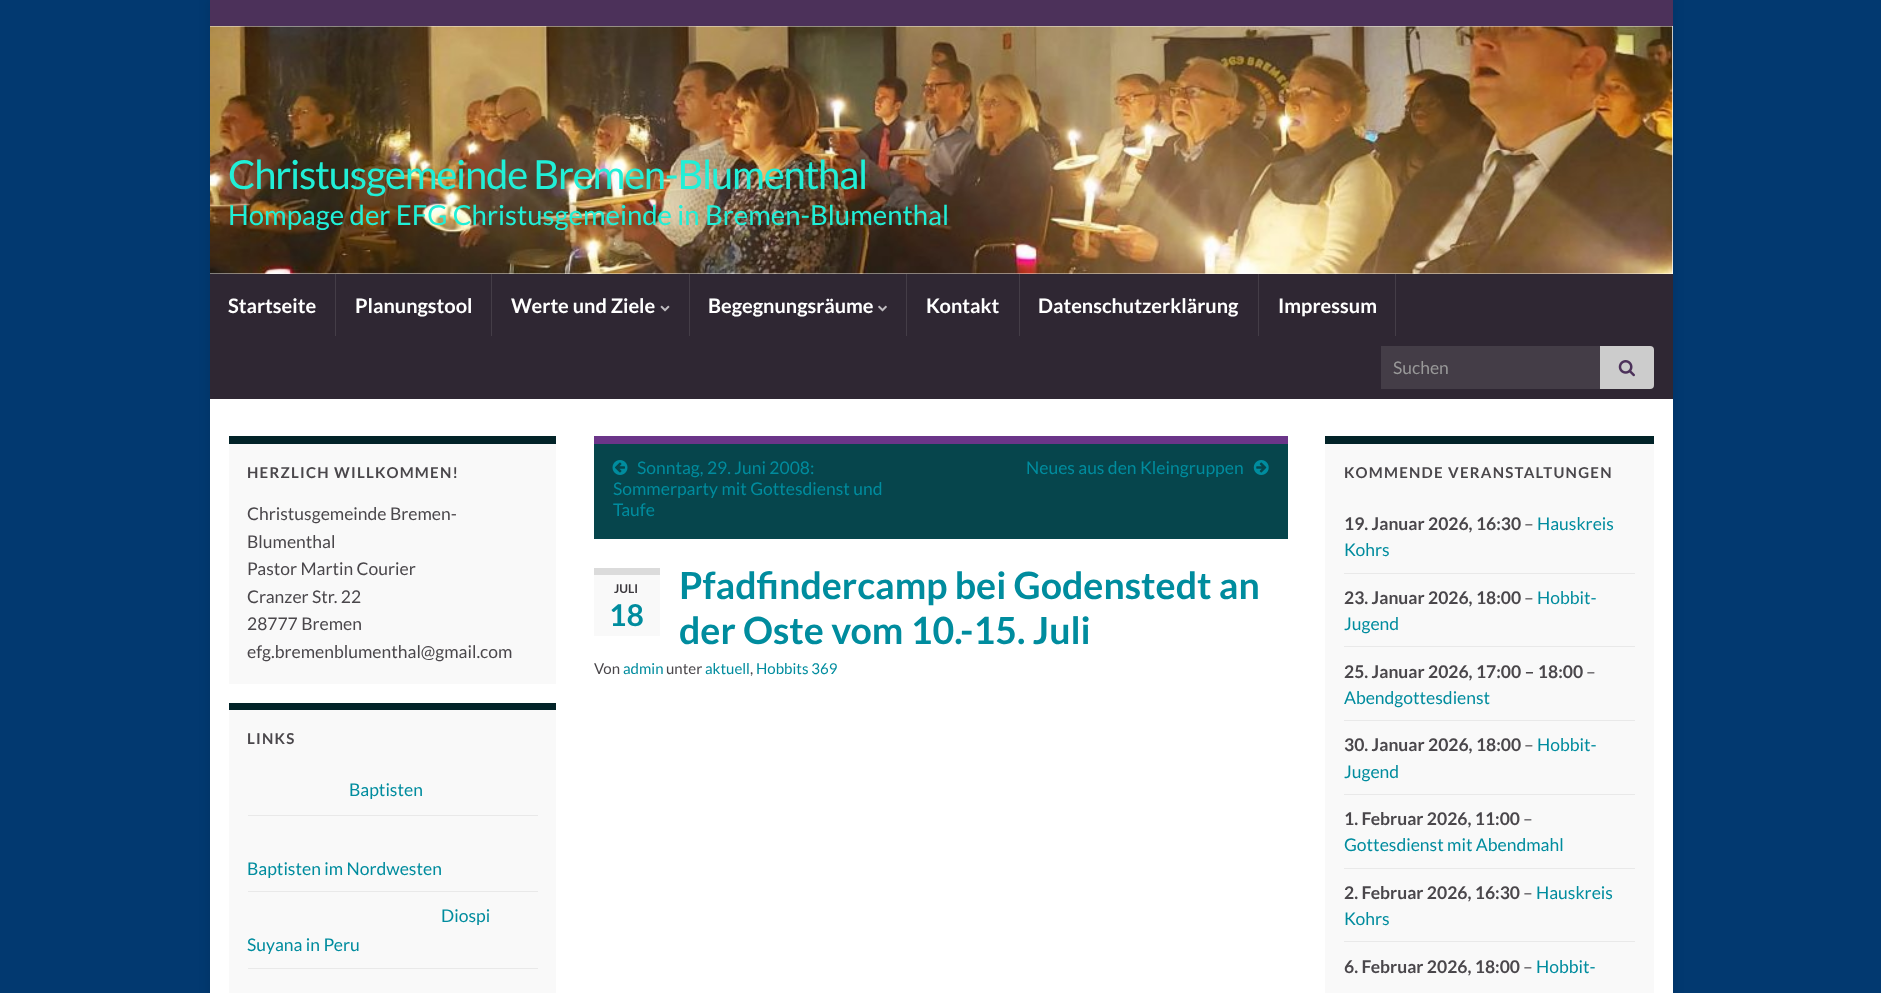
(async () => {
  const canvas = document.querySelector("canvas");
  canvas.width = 1881;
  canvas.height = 993;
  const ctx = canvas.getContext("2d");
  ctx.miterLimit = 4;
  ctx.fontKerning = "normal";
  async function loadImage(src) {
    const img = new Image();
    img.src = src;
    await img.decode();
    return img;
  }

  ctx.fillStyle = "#023970";
  ctx.fillRect(0, 0, 1881, 993);
  ctx.fillStyle = "rgba(0, 0, 0, 0.1)";
  ctx.filter = "blur(6px)";
  ctx.beginPath();
  ctx.rect(210, 0, 1463, 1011);
  ctx.fill();
  ctx.filter = "none";
  ctx.fillStyle = "#4c315a";
  ctx.fillRect(210, 0, 1463, 26);
  ctx.fillStyle = "#ffffff";
  ctx.fillRect(210, 26, 1463, 248);
  ctx.drawImage(await loadImage("img/1.png"), 210, 26, 1463, 248);
  for (const [x, y, w, h, color] of [
    [210, 274, 1463, 125, "#2f2733"],
    [335, 274, 1, 62, "#443d47"],
    [491, 274, 1, 62, "#443d47"],
    [689, 274, 1, 62, "#443d47"],
  ]) {
    ctx.fillStyle = color;
    ctx.fillRect(x, y, w, h);
  }
  ctx.drawImage(await loadImage("img/2.png"), 660, 305, 10, 7);
  ctx.fillRect(906, 274, 1, 62);
  ctx.drawImage(await loadImage("img/3.png"), 878, 305, 9, 7);
  for (const [x, y, w, h, color] of [
    [1019, 274, 1, 62, "#443d47"],
    [1258, 274, 1, 62, "#443d47"],
    [1395, 274, 1, 62, "#443d47"],
    [1381, 346, 219, 43, "#443d47"],
  ]) {
    ctx.fillStyle = color;
    ctx.fillRect(x, y, w, h);
  }
  ctx.fillStyle = "#cccccc";
  ctx.beginPath();
  ctx.roundRect(1600, 346, 54, 43, [0, 4, 4, 0]);
  ctx.fill();
  ctx.drawImage(await loadImage("img/4.png"), 1618, 360, 17, 17);
  for (const [x, y, w, h, color] of [
    [210, 399, 1463, 594, "#ffffff"],
    [229, 444, 327, 240, "#f9f9f9"],
    [229, 436, 327, 8, "#022328"],
    [229, 710, 327, 283, "#f9f9f9"],
    [229, 703, 327, 7, "#022328"],
    [248, 815, 290, 1, "#e9e9e9"],
    [248, 891, 290, 1, "#e9e9e9"],
    [248, 968, 290, 1, "#e9e9e9"],
    [594, 444, 694, 95, "#06454c"],
    [594, 436, 694, 8, "#6b3589"],
  ]) {
    ctx.fillStyle = color;
    ctx.fillRect(x, y, w, h);
  }
  ctx.drawImage(await loadImage("img/5.png"), 612, 460, 16, 15);
  ctx.drawImage(await loadImage("img/6.png"), 1253, 460, 16, 15);
  for (const [x, y, w, h, color] of [
    [594, 575, 66, 61, "#f9f9f9"],
    [594, 568, 66, 7, "#dbdbdb"],
    [1325, 444, 329, 549, "#f9f9f9"],
    [1325, 436, 329, 8, "#022328"],
    [1344, 573, 291, 1, "#e9e9e9"],
    [1344, 646, 291, 1, "#e9e9e9"],
    [1344, 720, 291, 1, "#e9e9e9"],
    [1344, 794, 291, 1, "#e9e9e9"],
    [1344, 868, 291, 1, "#e9e9e9"],
    [1344, 941, 291, 1, "#e9e9e9"],
  ]) {
    ctx.fillStyle = color;
    ctx.fillRect(x, y, w, h);
  }
  ctx.letterSpacing = "-1.25px";
  ctx.font = "40px Lato";
  ctx.fillStyle = "#21efd7";
  ctx.fillText("Christusgemeinde Bremen-Blumenthal", 228, 189);
  ctx.letterSpacing = "0px";
  ctx.font = "27.5px Lato";
  ctx.fillText("Hompage der EFG Christusgemeinde in Bremen-Blumenthal", 228, 225);
  ctx.font = "bold 20px Lato";
  ctx.fillStyle = "#ffffff";
  for (const [text, x, y] of [
    ["Startseite", 228, 313],
    ["Planungstool", 355, 313],
    ["Werte und Ziele", 511, 313],
    ["Begegnungsräume", 708, 313],
    ["Kontakt", 926, 313],
    ["Datenschutzerklärung", 1038, 313],
    ["Impressum", 1278, 313],
  ]) {
    ctx.fillText(text, x, y);
  }
  ctx.font = "17.5px Lato";
  ctx.fillStyle = "#999999";
  ctx.fillText("Suchen", 1393, 374);
  ctx.letterSpacing = "1.25px";
  ctx.font = "bold 15px Lato";
  ctx.fillStyle = "#4a474b";
  ctx.fillText("HERZLICH WILLKOMMEN!", 247, 478);
  ctx.letterSpacing = "0px";
  ctx.font = "17.5px Lato";
  for (const [text, x, y] of [
    ["Christusgemeinde Bremen-", 247, 520],
    ["Blumenthal", 247, 548],
    ["Pastor Martin Courier", 247, 575],
    ["Cranzer Str. 22", 247, 603],
    ["28777 Bremen", 247, 630],
    ["efg.bremenblumenthal@gmail.com", 247, 658],
  ]) {
    ctx.fillText(text, x, y);
  }
  ctx.letterSpacing = "1.25px";
  ctx.font = "bold 15px Lato";
  ctx.fillText("LINKS", 247, 744);
  ctx.letterSpacing = "0px";
  ctx.font = "17.5px Lato";
  ctx.fillStyle = "#008c9e";
  for (const [text, x, y] of [
    ["Baptisten", 349, 796],
    ["Baptisten im Nordwesten", 247, 875],
    ["Diospi", 441, 922],
    ["Suyana in Peru", 247, 951],
    ["Sonntag, 29. Juni 2008:", 637, 474],
    ["Sommerparty mit Gottesdienst und", 613, 495],
    ["Taufe", 613, 516],
    ["Neues aus den Kleingruppen", 1026, 474],
  ]) {
    ctx.fillText(text, x, y);
  }
  ctx.font = "bold 12px Lato";
  ctx.fillStyle = "#3b383d";
  ctx.fillText("JULI", 614, 593);
  ctx.font = "bold 30px Lato";
  ctx.fillStyle = "#008c9e";
  ctx.fillText("18", 609, 626);
  ctx.font = "bold 37.5px Lato";
  ctx.fillText("Pfadfindercamp bei Godenstedt an", 679, 599);
  ctx.fillText("der Oste vom 10.-15. Juli", 679, 644);
  ctx.font = "15px Lato";
  ctx.fillStyle = "#4a474b";
  ctx.fillText("Von", 594, 674);
  ctx.fillStyle = "#008c9e";
  ctx.fillText("admin", 623, 674);
  ctx.fillStyle = "#4a474b";
  ctx.fillText("unter", 666, 674);
  ctx.fillStyle = "#008c9e";
  ctx.fillText("aktuell", 705, 674);
  ctx.fillStyle = "#4a474b";
  ctx.fillText(",", 750, 674);
  ctx.fillStyle = "#008c9e";
  ctx.fillText("Hobbits 369", 756, 674);
  ctx.letterSpacing = "1.25px";
  ctx.font = "bold 15px Lato";
  ctx.fillStyle = "#4a474b";
  ctx.fillText("KOMMENDE VERANSTALTUNGEN", 1344, 478);
  ctx.letterSpacing = "0px";
  ctx.font = "bold 17.5px Lato";
  ctx.fillText("19. Januar 2026, 16:30", 1344, 530);
  ctx.font = "17.5px Lato";
  ctx.fillText("–", 1524, 530);
  ctx.fillStyle = "#008c9e";
  ctx.fillText("Hauskreis", 1537, 530);
  ctx.fillText("Kohrs", 1344, 556);
  ctx.font = "bold 17.5px Lato";
  ctx.fillStyle = "#4a474b";
  ctx.fillText("23. Januar 2026, 18:00", 1344, 604);
  ctx.font = "17.5px Lato";
  ctx.fillText("–", 1524, 604);
  ctx.fillStyle = "#008c9e";
  ctx.fillText("Hobbit-", 1537, 604);
  ctx.fillText("Jugend", 1344, 630);
  ctx.font = "bold 17.5px Lato";
  ctx.fillStyle = "#4a474b";
  ctx.fillText("25. Januar 2026, 17:00 – 18:00", 1344, 678);
  ctx.font = "17.5px Lato";
  ctx.fillText("–", 1586, 678);
  ctx.fillStyle = "#008c9e";
  ctx.fillText("Abendgottesdienst", 1344, 704);
  ctx.font = "bold 17.5px Lato";
  ctx.fillStyle = "#4a474b";
  ctx.fillText("30. Januar 2026, 18:00", 1344, 751);
  ctx.font = "17.5px Lato";
  ctx.fillText("–", 1524, 751);
  ctx.fillStyle = "#008c9e";
  ctx.fillText("Hobbit-", 1537, 751);
  ctx.fillText("Jugend", 1344, 778);
  ctx.font = "bold 17.5px Lato";
  ctx.fillStyle = "#4a474b";
  ctx.fillText("1. Februar 2026, 11:00", 1344, 825);
  ctx.font = "17.5px Lato";
  ctx.fillText("–", 1523, 825);
  ctx.fillStyle = "#008c9e";
  ctx.fillText("Gottesdienst mit Abendmahl", 1344, 851);
  ctx.font = "bold 17.5px Lato";
  ctx.fillStyle = "#4a474b";
  ctx.fillText("2. Februar 2026, 16:30", 1344, 899);
  ctx.font = "17.5px Lato";
  ctx.fillText("–", 1523, 899);
  ctx.fillStyle = "#008c9e";
  ctx.fillText("Hauskreis", 1536, 899);
  ctx.fillText("Kohrs", 1344, 925);
  ctx.font = "bold 17.5px Lato";
  ctx.fillStyle = "#4a474b";
  ctx.fillText("6. Februar 2026, 18:00", 1344, 973);
  ctx.font = "17.5px Lato";
  ctx.fillText("–", 1523, 973);
  ctx.fillStyle = "#008c9e";
  ctx.fillText("Hobbit-", 1536, 973);
})();
